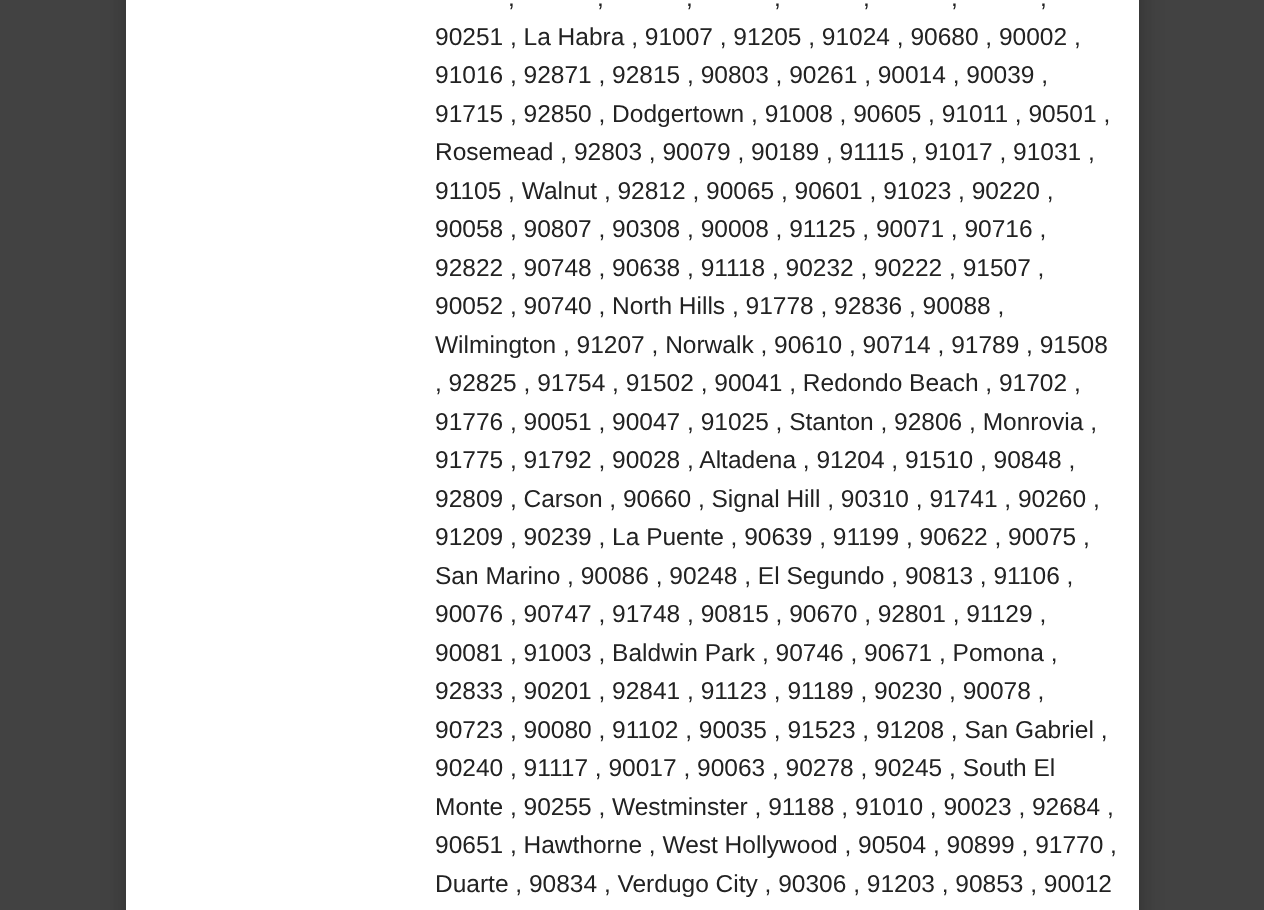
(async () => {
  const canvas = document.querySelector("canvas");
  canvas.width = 1264;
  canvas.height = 910;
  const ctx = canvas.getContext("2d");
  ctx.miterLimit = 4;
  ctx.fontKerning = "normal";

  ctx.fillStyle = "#424242";
  ctx.fillRect(0, 0, 1264, 910);
  ctx.fillStyle = "#2f2f2f";
  ctx.filter = "blur(10.5px)";
  ctx.beginPath();
  ctx.rect(126, -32, 1013, 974);
  ctx.fill();
  ctx.filter = "none";
  ctx.fillStyle = "#ffffff";
  ctx.fillRect(126, 0, 1013, 910);
  ctx.font = "24.5px Liberation Sans";
  ctx.fillStyle = "#222222";
  for (const [text, x, y] of [
    [",", 508, 6],
    [",", 597, 6],
    [",", 686, 6],
    [",", 774, 6],
    [",", 863, 6],
    [",", 951, 6],
    [",", 1040, 6],
    ["90251 , La Habra , 91007 , 91205 , 91024 , 90680 , 90002 ,", 435, 45],
    ["91016 , 92871 , 92815 , 90803 , 90261 , 90014 , 90039 ,", 435, 83],
    ["91715 , 92850 , Dodgertown , 91008 , 90605 , 91011 , 90501 ,", 435, 122],
    ["Rosemead , 92803 , 90079 , 90189 , 91115 , 91017 , 91031 ,", 435, 160],
    ["91105 , Walnut , 92812 , 90065 , 90601 , 91023 , 90220 ,", 435, 199],
    ["90058 , 90807 , 90308 , 90008 , 91125 , 90071 , 90716 ,", 435, 237],
    ["92822 , 90748 , 90638 , 91118 , 90232 , 90222 , 91507 ,", 435, 276],
    ["90052 , 90740 , North Hills , 91778 , 92836 , 90088 ,", 435, 314],
    ["Wilmington , 91207 , Norwalk , 90610 , 90714 , 91789 , 91508", 435, 353],
    [", 92825 , 91754 , 91502 , 90041 , Redondo Beach , 91702 ,", 435, 391],
    ["91776 , 90051 , 90047 , 91025 , Stanton , 92806 , Monrovia ,", 435, 430],
    ["91775 , 91792 , 90028 , Altadena , 91204 , 91510 , 90848 ,", 435, 468],
    ["92809 , Carson , 90660 , Signal Hill , 90310 , 91741 , 90260 ,", 435, 507],
    ["91209 , 90239 , La Puente , 90639 , 91199 , 90622 , 90075 ,", 435, 545],
    ["San Marino , 90086 , 90248 , El Segundo , 90813 , 91106 ,", 435, 584],
    ["90076 , 90747 , 91748 , 90815 , 90670 , 92801 , 91129 ,", 435, 622],
    ["90081 , 91003 , Baldwin Park , 90746 , 90671 , Pomona ,", 435, 661],
    ["92833 , 90201 , 92841 , 91123 , 91189 , 90230 , 90078 ,", 435, 699],
    ["90723 , 90080 , 91102 , 90035 , 91523 , 91208 , San Gabriel ,", 435, 738],
    ["90240 , 91117 , 90017 , 90063 , 90278 , 90245 , South El", 435, 776],
    ["Monte , 90255 , Westminster , 91188 , 91010 , 90023 , 92684 ,", 435, 815],
    ["90651 , Hawthorne , West Hollywood , 90504 , 90899 , 91770 ,", 435, 853],
    ["Duarte , 90834 , Verdugo City , 90306 , 91203 , 90853 , 90012", 435, 892],
  ]) {
    ctx.fillText(text, x, y);
  }
})();
